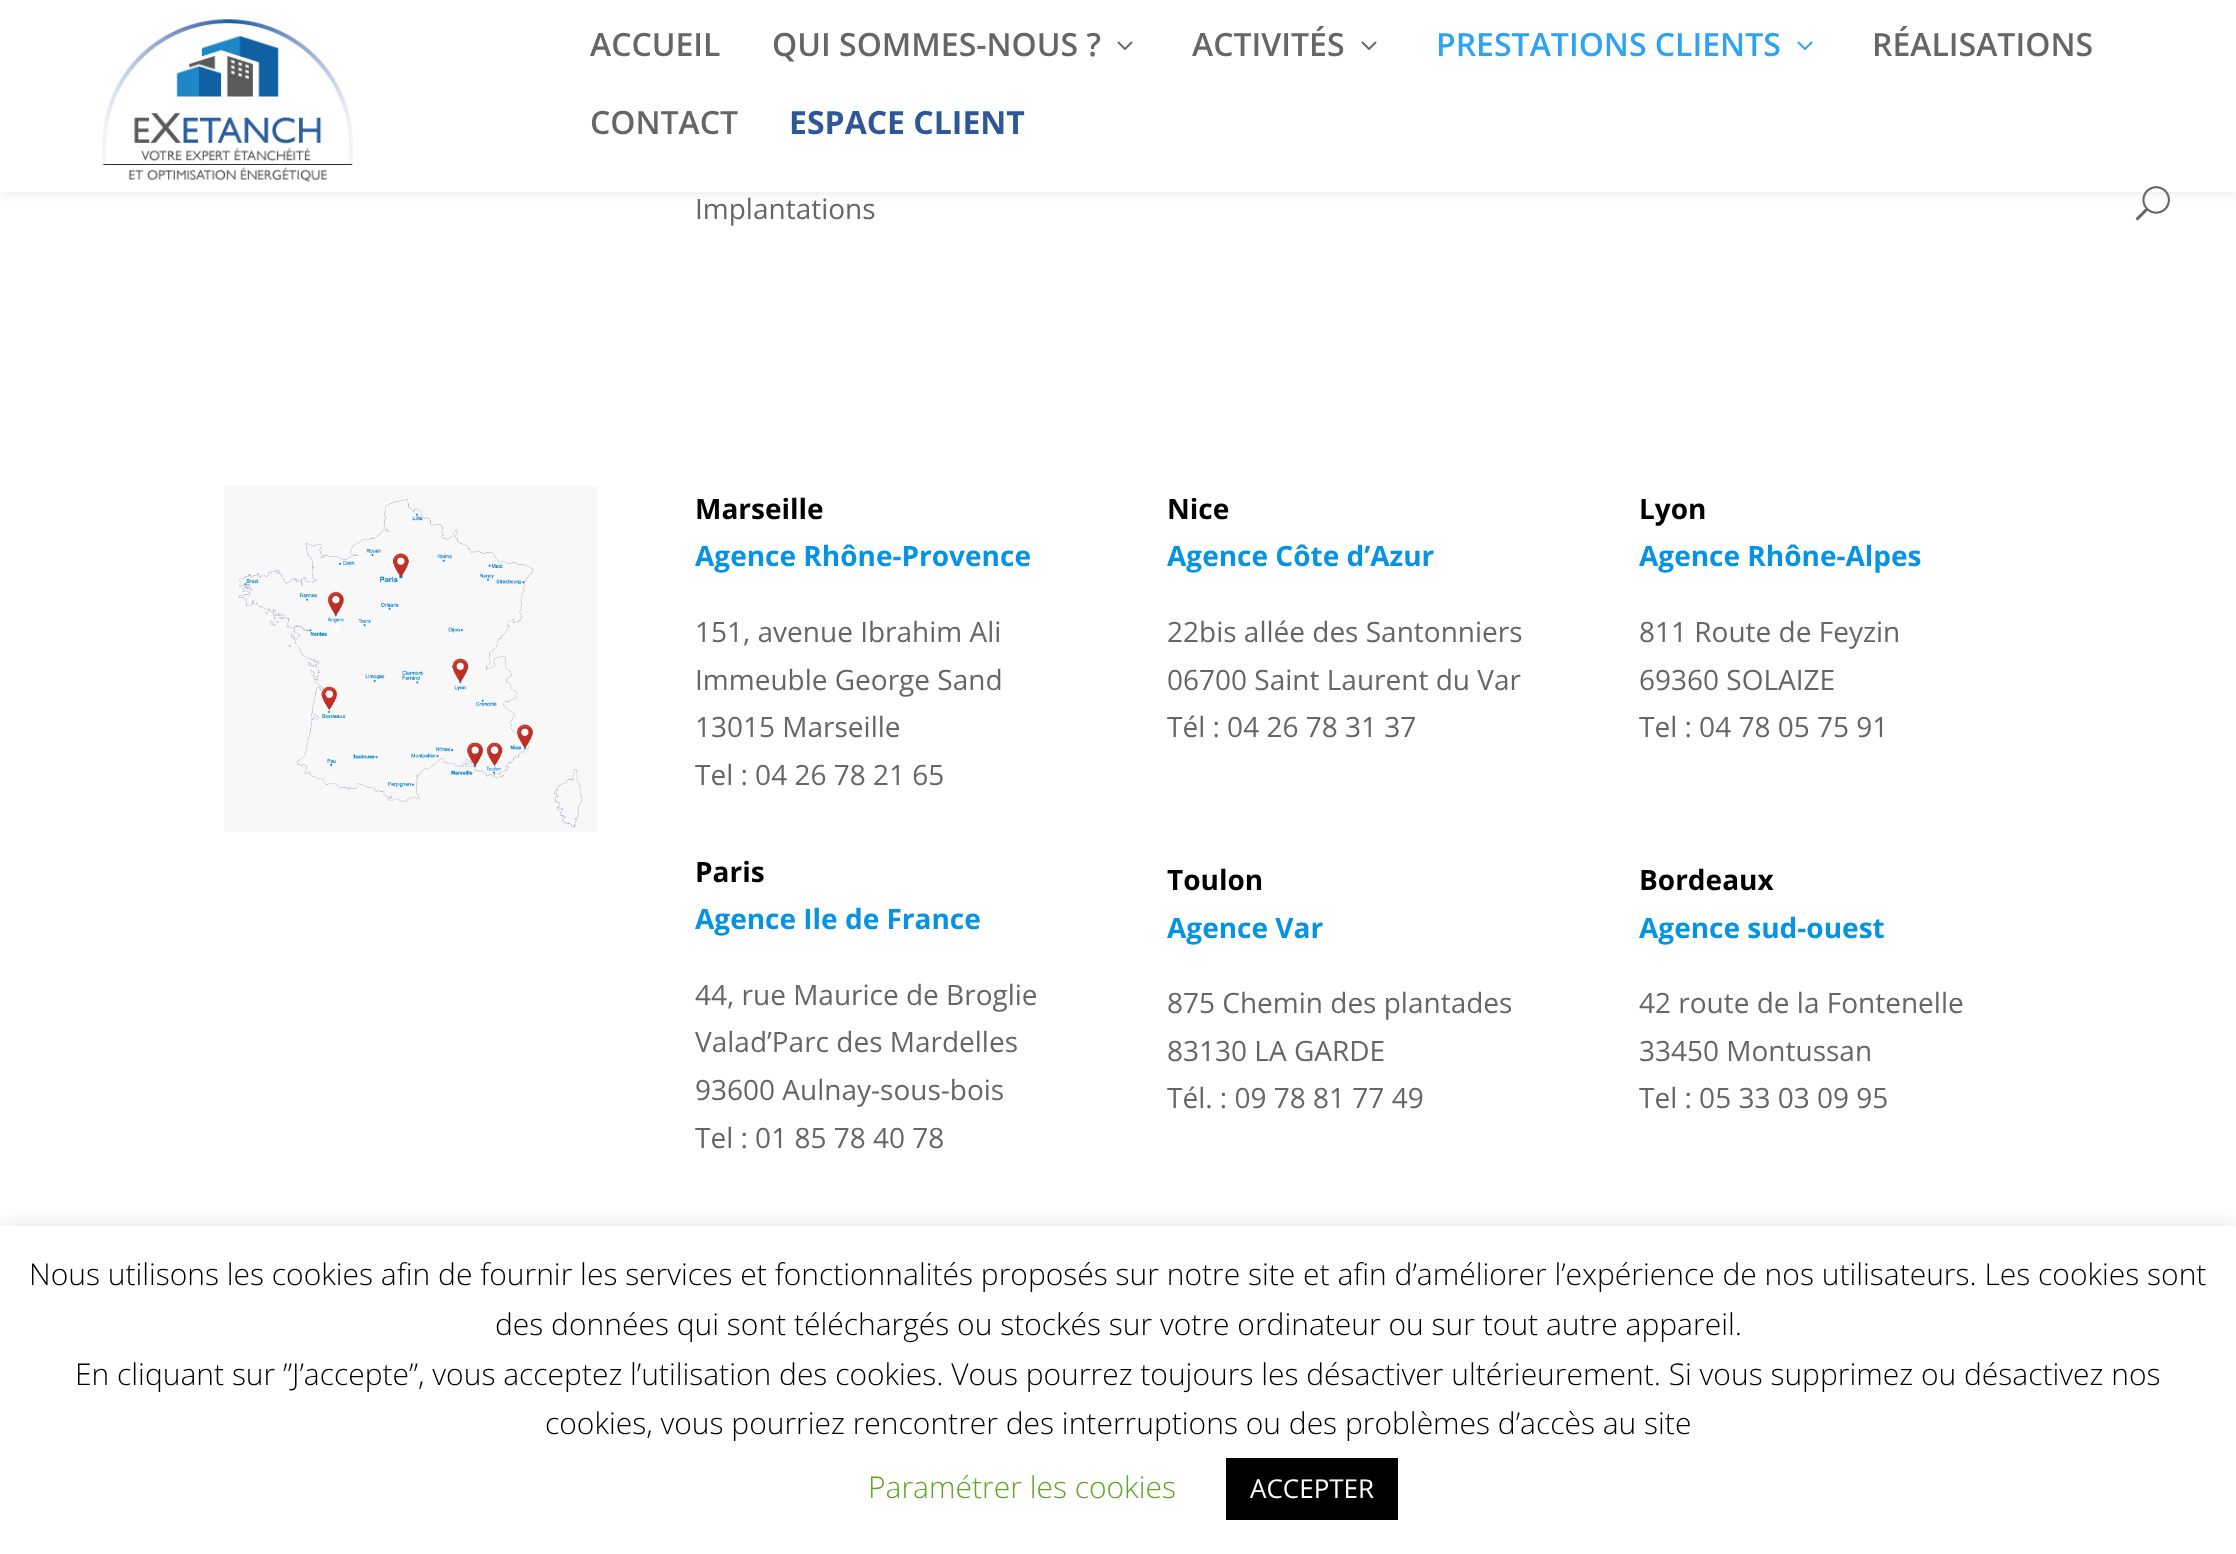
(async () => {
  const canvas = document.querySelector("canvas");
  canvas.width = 2236;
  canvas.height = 1554;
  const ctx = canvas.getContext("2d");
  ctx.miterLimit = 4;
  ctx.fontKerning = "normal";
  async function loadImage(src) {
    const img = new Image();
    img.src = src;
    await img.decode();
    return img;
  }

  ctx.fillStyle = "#ffffff";
  ctx.fillRect(0, 0, 2236, 1554);
  ctx.fillStyle = "rgba(0, 0, 0, 0.1)";
  ctx.filter = "blur(7px)";
  ctx.beginPath();
  ctx.rect(0, 0, 2236, 192);
  ctx.fill();
  ctx.filter = "none";
  ctx.fillStyle = "#ffffff";
  ctx.fillRect(0, 0, 2236, 192);
  ctx.drawImage(await loadImage("img/1.png"), 102, 19, 251, 163);
  ctx.drawImage(await loadImage("img/2.png"), 1117, 41, 16, 9);
  ctx.drawImage(await loadImage("img/2.png"), 1361, 41, 16, 9);
  ctx.drawImage(await loadImage("img/3.png"), 1797, 41, 16, 9);
  ctx.drawImage(await loadImage("img/4.png"), 2135, 186, 35, 35);
  ctx.drawImage(await loadImage("img/5.png"), 224, 486, 374, 346);
  ctx.fillStyle = "rgba(172, 171, 171, 0.3)";
  ctx.filter = "blur(10px)";
  ctx.beginPath();
  ctx.rect(0, 1224, 2236, 328);
  ctx.fill();
  ctx.filter = "none";
  ctx.fillStyle = "#ffffff";
  ctx.fillRect(0, 1226, 2236, 328);
  ctx.fillStyle = "#000000";
  ctx.fillRect(1226, 1458, 172, 62);
  ctx.font = "600 32px Open Sans";
  ctx.fillStyle = "#666666";
  for (const [text, x, y] of [
    ["ACCUEIL", 590, 56],
    ["QUI SOMMES-NOUS ?", 772, 56],
    ["ACTIVITÉS", 1192, 56],
  ]) {
    ctx.fillText(text, x, y);
  }
  ctx.fillStyle = "#2ea3f2";
  ctx.fillText("PRESTATIONS CLIENTS", 1436, 56);
  ctx.fillStyle = "#666666";
  ctx.fillText("RÉALISATIONS", 1872, 56);
  ctx.fillText("CONTACT", 590, 134);
  ctx.font = "bold 32px Open Sans";
  ctx.fillStyle = "#2d5797";
  ctx.fillText("ESPACE CLIENT", 789, 134);
  ctx.font = "28px Open Sans";
  ctx.fillStyle = "#666666";
  ctx.fillText("Implantations", 695, 219);
  ctx.font = "bold 28px Open Sans";
  ctx.fillStyle = "#000000";
  ctx.fillText("Marseille", 695, 519);
  ctx.fillStyle = "#0693e3";
  ctx.fillText("Agence Rhône-Provence", 695, 566);
  ctx.font = "28px Open Sans";
  ctx.fillStyle = "#666666";
  for (const [text, x, y] of [
    ["151, avenue Ibrahim Ali", 695, 642],
    ["Immeuble George Sand", 695, 690],
    ["13015 Marseille", 695, 737],
    ["Tel : 04 26 78 21 65", 695, 785],
  ]) {
    ctx.fillText(text, x, y);
  }
  ctx.font = "bold 28px Open Sans";
  ctx.fillStyle = "#000000";
  ctx.fillText("Paris", 695, 882);
  ctx.fillStyle = "#0693e3";
  ctx.fillText("Agence Ile de France", 695, 929);
  ctx.font = "28px Open Sans";
  ctx.fillStyle = "#666666";
  for (const [text, x, y] of [
    ["44, rue Maurice de Broglie", 695, 1005],
    ["Valad’Parc des Mardelles", 695, 1052],
    ["93600 Aulnay-sous-bois", 695, 1100],
    ["Tel : 01 85 78 40 78", 695, 1148],
  ]) {
    ctx.fillText(text, x, y);
  }
  ctx.font = "bold 28px Open Sans";
  ctx.fillStyle = "#000000";
  ctx.fillText("Nice", 1167, 519);
  ctx.fillStyle = "#0693e3";
  ctx.fillText("Agence Côte d’Azur", 1167, 566);
  ctx.font = "28px Open Sans";
  ctx.fillStyle = "#666666";
  for (const [text, x, y] of [
    ["22bis allée des Santonniers", 1167, 642],
    ["06700 Saint Laurent du Var", 1167, 690],
    ["Tél : 04 26 78 31 37", 1167, 737],
  ]) {
    ctx.fillText(text, x, y);
  }
  ctx.font = "bold 28px Open Sans";
  ctx.fillStyle = "#000000";
  ctx.fillText("Toulon", 1167, 890);
  ctx.fillStyle = "#0693e3";
  ctx.fillText("Agence Var", 1167, 938);
  ctx.font = "28px Open Sans";
  ctx.fillStyle = "#666666";
  for (const [text, x, y] of [
    ["875 Chemin des plantades", 1167, 1013],
    ["83130 LA GARDE", 1167, 1061],
    ["Tél. : 09 78 81 77 49", 1167, 1108],
  ]) {
    ctx.fillText(text, x, y);
  }
  ctx.font = "bold 28px Open Sans";
  ctx.fillStyle = "#000000";
  ctx.fillText("Lyon", 1639, 519);
  ctx.fillStyle = "#0693e3";
  ctx.fillText("Agence Rhône-Alpes", 1639, 566);
  ctx.font = "28px Open Sans";
  ctx.fillStyle = "#666666";
  for (const [text, x, y] of [
    ["811 Route de Feyzin", 1639, 642],
    ["69360 SOLAIZE", 1639, 690],
    ["Tel : 04 78 05 75 91", 1639, 737],
  ]) {
    ctx.fillText(text, x, y);
  }
  ctx.font = "bold 28px Open Sans";
  ctx.fillStyle = "#000000";
  ctx.fillText("Bordeaux", 1639, 890);
  ctx.fillStyle = "#0693e3";
  ctx.fillText("Agence sud-ouest", 1639, 938);
  ctx.font = "28px Open Sans";
  ctx.fillStyle = "#666666";
  for (const [text, x, y] of [
    ["42 route de la Fontenelle", 1639, 1013],
    ["33450 Montussan", 1639, 1061],
    ["Tel : 05 33 03 09 95", 1639, 1108],
  ]) {
    ctx.fillText(text, x, y);
  }
  ctx.font = "300 30px Open Sans";
  ctx.fillStyle = "#000000";
  for (const [text, x, y] of [
    ["Nous utilisons les cookies afin de fournir les services et fonctionnalités proposés sur notre site et afin d’améliorer l’expérience de nos utilisateurs. Les cookies sont", 29, 1285],
    ["des données qui sont téléchargés ou stockés sur votre ordinateur ou sur tout autre appareil.", 495, 1335],
    ["En cliquant sur ”J’accepte”, vous acceptez l’utilisation des cookies. Vous pourrez toujours les désactiver ultérieurement. Si vous supprimez ou désactivez nos", 75, 1385],
    ["cookies, vous pourriez rencontrer des interruptions ou des problèmes d’accès au site", 545, 1434],
  ]) {
    ctx.fillText(text, x, y);
  }
  ctx.fillStyle = "#62a329";
  ctx.fillText("Paramétrer les cookies", 868, 1498);
  ctx.font = "26px Open Sans";
  ctx.fillStyle = "#ffffff";
  ctx.fillText("ACCEPTER", 1250, 1498);
})();
